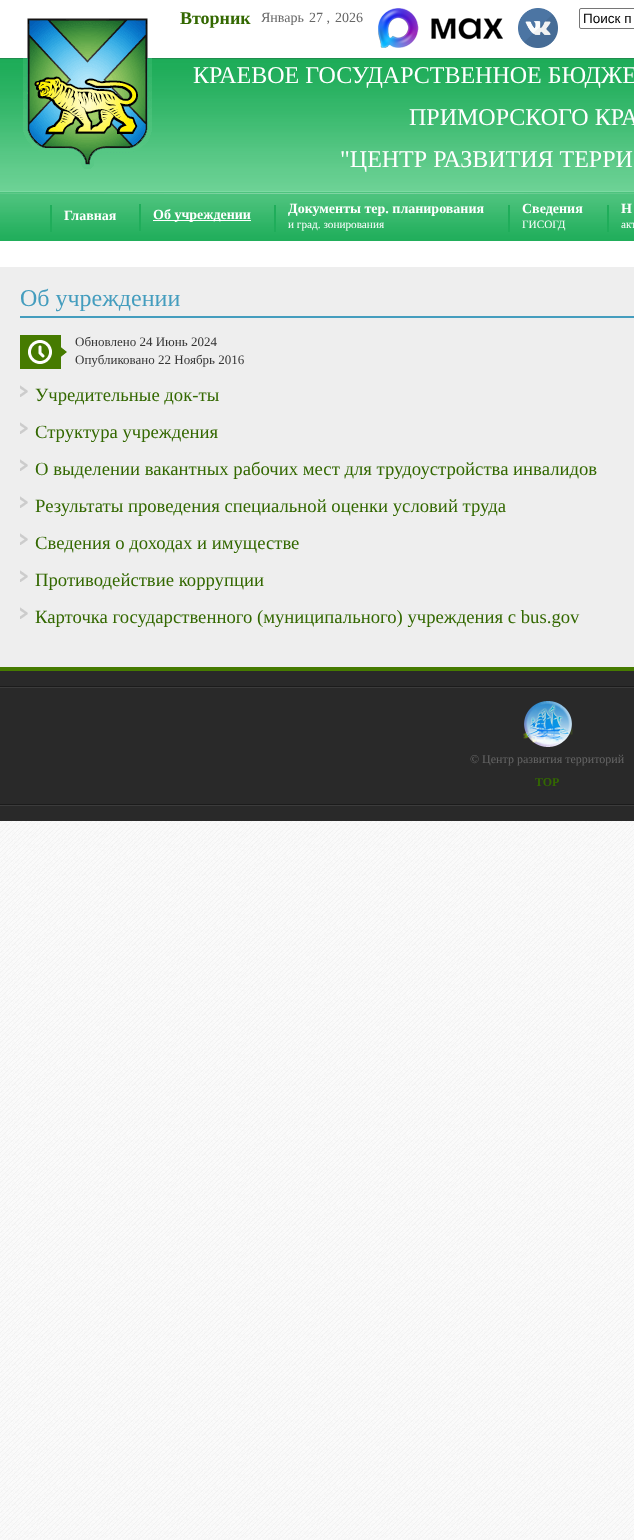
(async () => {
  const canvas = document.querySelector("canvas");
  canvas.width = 634;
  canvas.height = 1540;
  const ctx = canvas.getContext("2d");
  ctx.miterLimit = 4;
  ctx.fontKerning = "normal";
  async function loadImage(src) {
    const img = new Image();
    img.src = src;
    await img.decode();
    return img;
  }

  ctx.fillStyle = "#ffffff";
  ctx.fillRect(0, 0, 634, 1540);
  ctx.drawImage(await loadImage("img/1.png"), 0, 821, 634, 719);
  ctx.drawImage(await loadImage("img/4.png"), 0, 7, 634, 234);
  ctx.drawImage(await loadImage("img/2.png"), 378, 8, 125, 40);
  ctx.drawImage(await loadImage("img/3.png"), 518, 8, 40, 40);
  ctx.beginPath();
  ctx.roundRect(579.5, 8.5, 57, 20, 1.5);
  ctx.strokeStyle = "#767676";
  ctx.stroke();
  ctx.drawImage(await loadImage("img/5.png"), 23, 18, 129, 151);
  for (const [x, y, w, h, color] of [
    [50, 205, 2, 27, "#1fad5a"],
    [139, 204, 2, 27, "#1fad5a"],
    [153, 220, 98, 1, "#ffffff"],
    [274, 205, 2, 27, "#1fad5a"],
    [508, 205, 2, 27, "#1fad5a"],
    [607, 205, 2, 27, "#1fad5a"],
    [0, 267, 634, 400, "#eeeeee"],
    [20, 316, 614, 2, "#449dbe"],
  ]) {
    ctx.fillStyle = color;
    ctx.fillRect(x, y, w, h);
  }
  ctx.drawImage(await loadImage("img/6.png"), 20, 335, 47, 34);
  ctx.drawImage(await loadImage("img/7.png"), 20, 385, 8, 12);
  ctx.drawImage(await loadImage("img/7.png"), 20, 422, 8, 12);
  ctx.drawImage(await loadImage("img/7.png"), 20, 459, 8, 12);
  ctx.drawImage(await loadImage("img/7.png"), 20, 496, 8, 12);
  ctx.drawImage(await loadImage("img/7.png"), 20, 533, 8, 12);
  ctx.drawImage(await loadImage("img/7.png"), 20, 570, 8, 12);
  ctx.drawImage(await loadImage("img/7.png"), 20, 607, 8, 12);
  ctx.fillStyle = "#292929";
  ctx.fillRect(0, 671, 634, 150);
  ctx.fillStyle = "#467b00";
  ctx.fillRect(0, 667, 634, 4);
  ctx.drawImage(await loadImage("img/8.png"), 0, 686, 634, 2);
  ctx.drawImage(await loadImage("img/8.png"), 0, 804, 634, 2);
  ctx.drawImage(await loadImage("img/9.png"), 523, 701, 50, 46);
  ctx.font = "bold 18px Liberation Serif";
  ctx.fillStyle = "#336800";
  ctx.fillText("Вторник", 180, 24);
  ctx.font = "14px Liberation Serif";
  ctx.fillStyle = "#666666";
  for (const [text, x, y] of [
    ["Январь", 261, 22],
    ["27 ,", 309, 22],
    ["2026", 335, 22],
  ]) {
    ctx.fillText(text, x, y);
  }
  ctx.font = "13.5px Liberation Sans";
  ctx.fillStyle = "#000000";
  ctx.fillText("Поиск п", 583, 23);
  ctx.font = "24px Liberation Serif";
  ctx.fillStyle = "#ffffff";
  for (const [text, x, y] of [
    ["КРАЕВОЕ ГОСУДАРСТВЕННОЕ БЮДЖЕ", 193, 83],
    ["ПРИМОРСКОГО КРА", 409, 125],
    ["\"ЦЕНТР РАЗВИТИЯ ТЕРРИ", 340, 167],
  ]) {
    ctx.fillText(text, x, y);
  }
  ctx.font = "bold 14px Liberation Serif";
  for (const [text, x, y] of [
    ["Главная", 64, 220],
    ["Об учреждении", 153, 219],
    ["Документы тер. планирования", 288, 213],
  ]) {
    ctx.fillText(text, x, y);
  }
  ctx.font = "11.25px Liberation Serif";
  ctx.fillText("и град. зонирования", 288, 228);
  ctx.font = "bold 14px Liberation Serif";
  ctx.fillText("Сведения", 522, 213);
  ctx.font = "11.25px Liberation Serif";
  ctx.fillText("ГИСОГД", 522, 228);
  ctx.font = "bold 14px Liberation Serif";
  ctx.fillText("Н", 621, 213);
  ctx.font = "11.25px Liberation Serif";
  ctx.fillText("акт", 621, 228);
  ctx.font = "24px Liberation Serif";
  ctx.fillStyle = "#449dbe";
  ctx.fillText("Об учреждении", 20, 306);
  ctx.font = "13px Liberation Serif";
  ctx.fillStyle = "#333333";
  ctx.fillText("Обновлено 24 Июнь 2024", 75, 346);
  ctx.fillText("Опубликовано 22 Ноябрь 2016", 75, 364);
  ctx.font = "18.7px Liberation Serif";
  ctx.fillStyle = "#336800";
  for (const [text, x, y] of [
    ["Учредительные док-ты", 35, 401],
    ["Структура учреждения", 35, 438],
    ["О выделении вакантных рабочих мест для трудоустройства инвалидов", 35, 475],
    ["Результаты проведения специальной оценки условий труда", 35, 512],
    ["Сведения о доходах и имуществе", 35, 549],
    ["Противодействие коррупции", 35, 586],
    ["Карточка государственного (муниципального) учреждения c bus.gov", 35, 623],
  ]) {
    ctx.fillText(text, x, y);
  }
  ctx.font = "12px Liberation Serif";
  ctx.fillStyle = "#666666";
  ctx.fillText("© Центр развития территорий", 470, 763);
  ctx.font = "bold 12px Liberation Serif";
  ctx.fillStyle = "#336800";
  ctx.fillText("TOP", 535, 786);
})();
